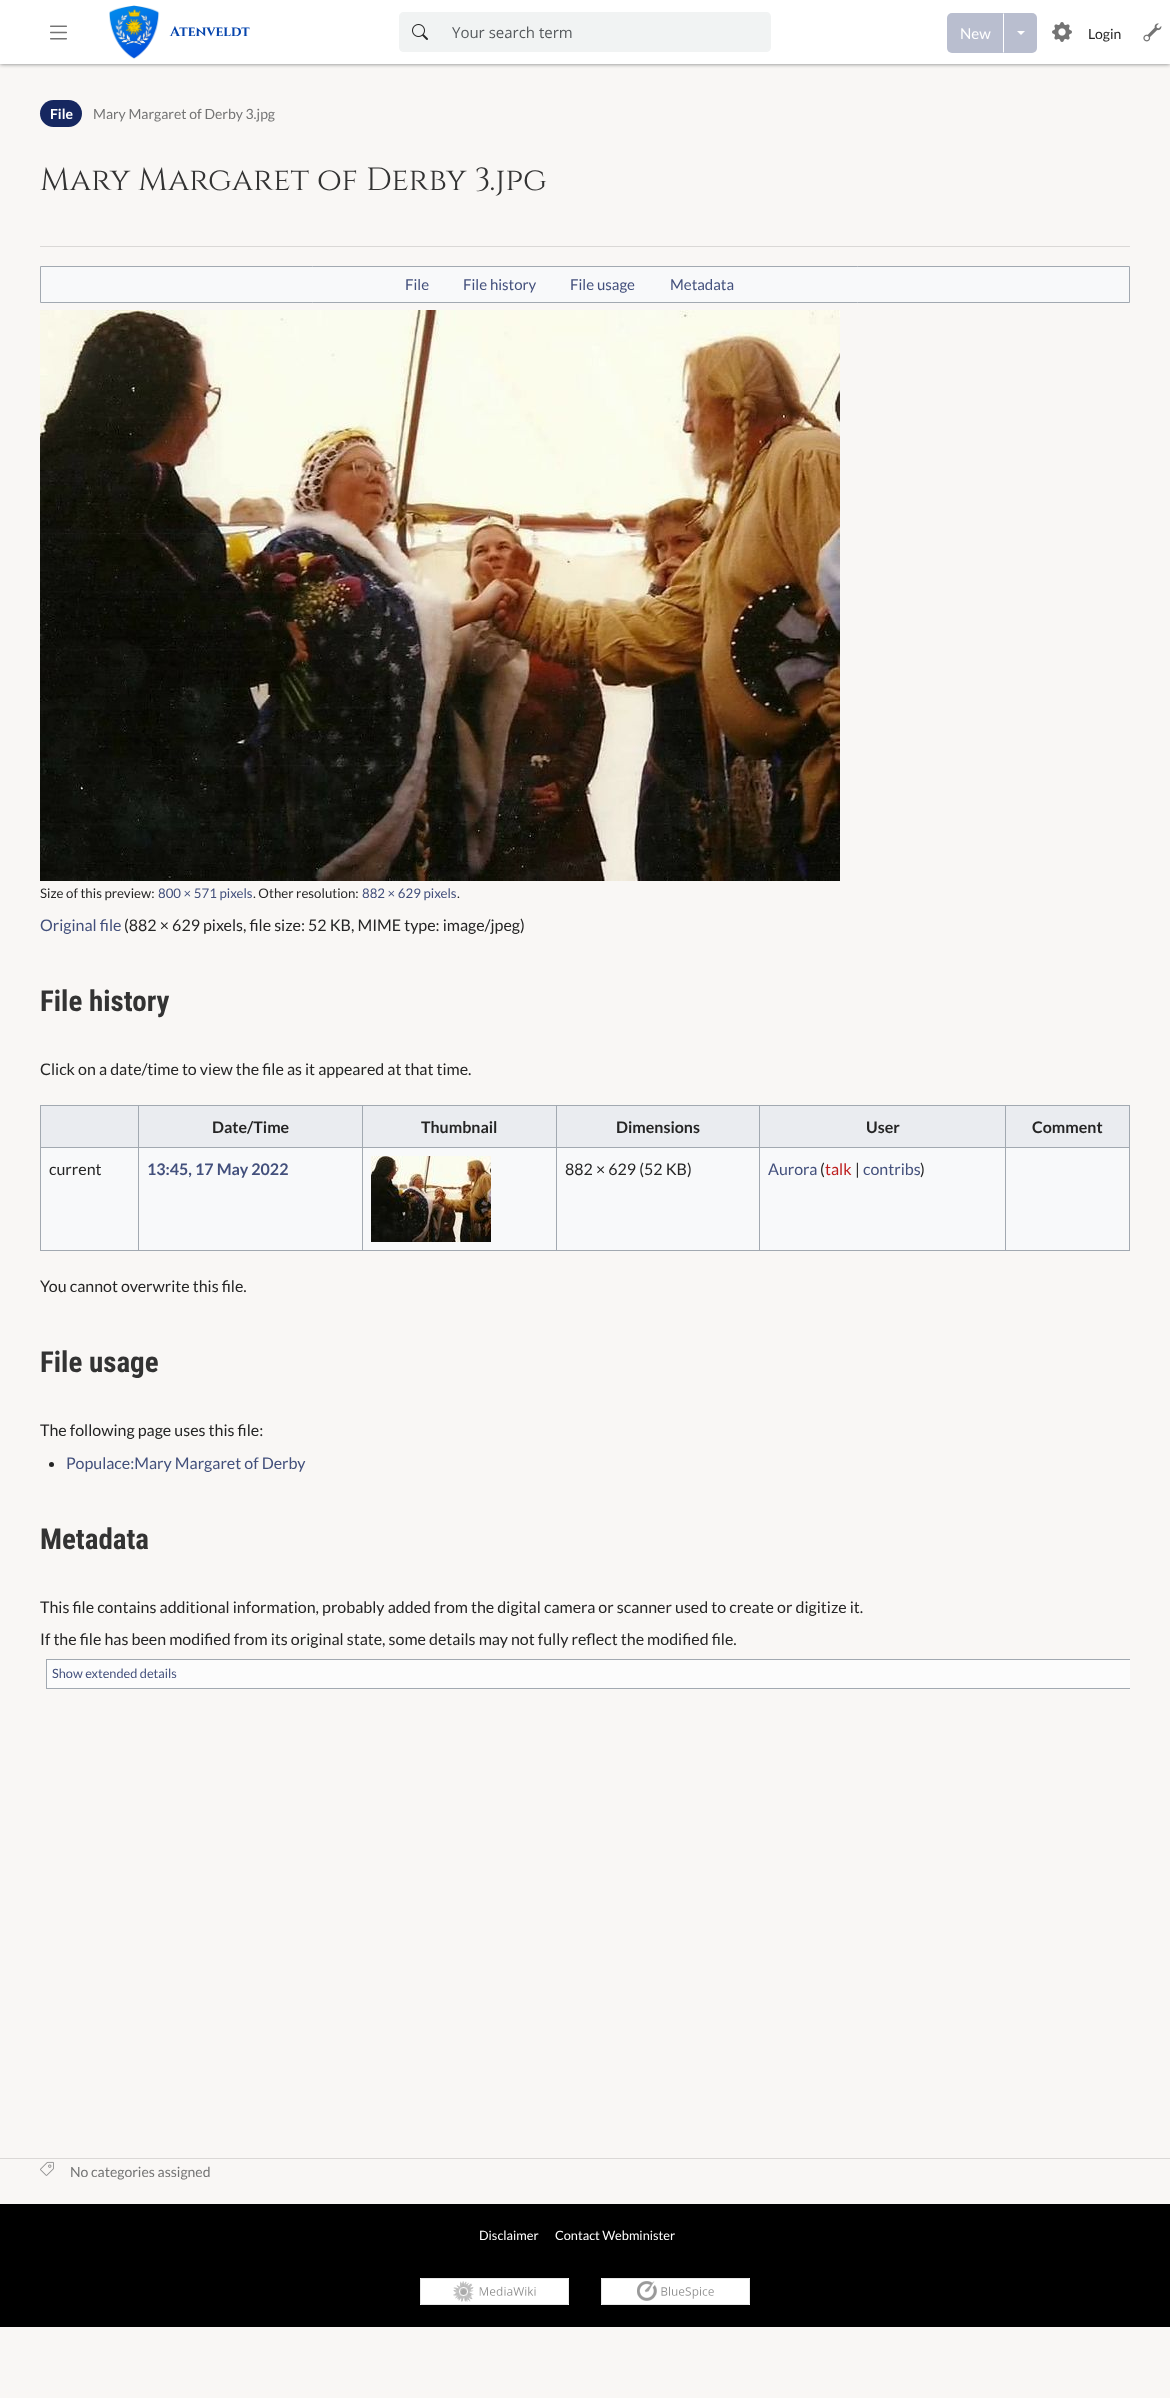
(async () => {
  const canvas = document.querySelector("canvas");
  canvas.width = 1170;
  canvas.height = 2398;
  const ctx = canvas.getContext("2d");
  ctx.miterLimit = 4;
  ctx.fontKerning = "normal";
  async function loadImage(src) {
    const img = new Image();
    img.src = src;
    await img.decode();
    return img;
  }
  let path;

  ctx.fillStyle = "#f9f7f5";
  ctx.fillRect(0, 0, 1170, 2398);
  ctx.fillStyle = "#747474";
  ctx.filter = "blur(2px)";
  ctx.beginPath();
  ctx.rect(0, 0, 1170, 64);
  ctx.fill();
  ctx.filter = "none";
  ctx.fillStyle = "#ffffff";
  ctx.fillRect(0, 0, 1170, 64);
  ctx.drawImage(await loadImage("img/1.png"), 50, 25, 17, 15);
  ctx.drawImage(await loadImage("img/2.png"), 109, 5, 51, 54);
  ctx.fillStyle = "#f1f3f3";
  ctx.beginPath();
  ctx.roundRect(400, 13, 40, 38, [4, 0, 0, 4]);
  ctx.fill();
  path = new Path2D("M404 12H440V52H404C401 52 399 50 399 47V17C399 14 401 12 404 12ZM404 13H440V51H404C402 51 400 49 400 47V17C400 15 402 13 404 13Z");
  ctx.fill(path, "evenodd");
  ctx.drawImage(await loadImage("img/3.png"), 412, 24, 16, 16);
  ctx.beginPath();
  ctx.roundRect(440, 13, 330, 38, [0, 4, 4, 0]);
  ctx.fill();
  path = new Path2D("M440 12H766C769 12 771 14 771 17V47C771 50 769 52 766 52H440ZM440 13H766C768 13 770 15 770 17V47C770 49 768 51 766 51H440Z");
  ctx.fill(path, "evenodd");
  ctx.fillStyle = "#b9becf";
  ctx.beginPath();
  ctx.roundRect(947, 13, 57, 40, [5, 0, 0, 5]);
  ctx.fill();
  ctx.fillStyle = "#ffffff";
  path = new Path2D("M1004 13L1003 14V52L1004 53Z");
  ctx.fill(path);
  ctx.fillStyle = "#b9becf";
  ctx.beginPath();
  ctx.roundRect(1004, 13, 33, 40, [0, 5, 5, 0]);
  ctx.fill();
  ctx.fillStyle = "#ffffff";
  path = new Path2D("M1017 31H1025L1021 35Z");
  ctx.fill(path);
  ctx.drawImage(await loadImage("img/4.png"), 1052, 22, 20, 20);
  ctx.drawImage(await loadImage("img/5.png"), 1143, 23, 19, 19);
  ctx.fillStyle = "#dad8d6";
  ctx.fillRect(40, 246, 1090, 1);
  ctx.fillStyle = "#162760";
  ctx.beginPath();
  ctx.roundRect(40, 100, 42, 27, 13.5);
  ctx.fill();
  ctx.fillStyle = "#f8f9fa";
  ctx.beginPath();
  ctx.rect(40.5, 266.5, 1089, 36);
  ctx.fill();
  ctx.strokeStyle = "#a2a9b1";
  ctx.stroke();
  ctx.drawImage(await loadImage("img/6.png"), 40, 310, 800, 571);
  for (const [x, y, w, h, color] of [
    [41, 1148, 1088, 102, "#f8f9fa"],
    [40, 1105, 1090, 1, "#a2a9b1"],
    [1129, 1105, 1, 146, "#a2a9b1"],
    [40, 1250, 1090, 1, "#a2a9b1"],
    [40, 1105, 1, 146, "#a2a9b1"],
    [41, 1106, 97, 41, "#eaecf0"],
    [139, 1106, 223, 41, "#eaecf0"],
    [1005, 1147, 125, 1, "#a2a9b1"],
    [1005, 1147, 1, 104, "#a2a9b1"],
    [759, 1147, 247, 1, "#a2a9b1"],
    [759, 1147, 1, 104, "#a2a9b1"],
    [556, 1147, 204, 1, "#a2a9b1"],
    [556, 1147, 1, 104, "#a2a9b1"],
    [362, 1147, 195, 1, "#a2a9b1"],
    [362, 1147, 1, 104, "#a2a9b1"],
    [138, 1147, 225, 1, "#a2a9b1"],
    [138, 1147, 1, 104, "#a2a9b1"],
    [40, 1147, 99, 1, "#a2a9b1"],
    [138, 1105, 1, 43, "#a2a9b1"],
    [363, 1106, 193, 41, "#eaecf0"],
    [362, 1105, 1, 43, "#a2a9b1"],
    [557, 1106, 202, 41, "#eaecf0"],
    [556, 1105, 1, 43, "#a2a9b1"],
    [760, 1106, 245, 41, "#eaecf0"],
    [759, 1105, 1, 43, "#a2a9b1"],
    [1006, 1106, 123, 41, "#eaecf0"],
    [1005, 1105, 1, 43, "#a2a9b1"],
  ]) {
    ctx.fillStyle = color;
    ctx.fillRect(x, y, w, h);
  }
  ctx.drawImage(await loadImage("img/7.png"), 371, 1156, 120, 86);
  ctx.fillStyle = "#252525";
  ctx.beginPath();
  ctx.arc(51.5, 1464.5, 2.5, 0, Math.PI * 2);
  ctx.fill();
  for (const [x, y, w, h, color] of [
    [47, 1660, 1083, 28, "#fcfcfc"],
    [46, 1659, 1084, 1, "#a2a9b1"],
    [46, 1688, 1084, 1, "#a2a9b1"],
    [46, 1659, 1, 30, "#a2a9b1"],
    [0, 2158, 1170, 1, "#dad8d6"],
  ]) {
    ctx.fillStyle = color;
    ctx.fillRect(x, y, w, h);
  }
  ctx.drawImage(await loadImage("img/8.png"), 40, 2161, 14, 15);
  ctx.fillStyle = "#000000";
  ctx.fillRect(0, 2204, 1170, 123);
  ctx.drawImage(await loadImage("img/9.png"), 420, 2278, 149, 27);
  ctx.drawImage(await loadImage("img/10.png"), 601, 2278, 149, 27);
  ctx.font = "bold 14px Cinzel";
  ctx.fillStyle = "#0645ad";
  ctx.fillText("Atenveldt", 170, 36);
  ctx.font = "15px Open Sans";
  ctx.fillStyle = "#55595c";
  ctx.fillText("Your search term", 452, 38);
  ctx.font = "15px Lato";
  ctx.fillStyle = "#ffffff";
  ctx.fillText("New", 960, 39);
  ctx.font = "14px Lato";
  ctx.fillStyle = "#252525";
  ctx.fillText("Login", 1088, 39);
  ctx.font = "bold 14px Lato";
  ctx.fillStyle = "#ffffff";
  ctx.fillText("File", 50, 119);
  ctx.font = "14px Lato";
  ctx.fillStyle = "#747474";
  ctx.fillText("Mary Margaret of Derby 3.jpg", 93, 119);
  ctx.font = "32px Cinzel";
  ctx.fillStyle = "#333333";
  ctx.fillText("Mary Margaret of Derby 3.jpg", 40, 190);
  ctx.font = "15px Lato";
  ctx.fillStyle = "#43507c";
  for (const [text, x, y] of [
    ["File", 405, 290],
    ["File history", 463, 290],
    ["File usage", 570, 290],
    ["Metadata", 670, 290],
  ]) {
    ctx.fillText(text, x, y);
  }
  ctx.font = "13.25px Lato";
  ctx.fillStyle = "#252525";
  ctx.fillText("Size of this preview:", 40, 898);
  ctx.fillStyle = "#43507c";
  ctx.fillText("800 × 571 pixels", 158, 898);
  ctx.fillStyle = "#252525";
  ctx.fillText(". Other resolution:", 253, 898);
  ctx.fillStyle = "#43507c";
  ctx.fillText("882 × 629 pixels", 362, 898);
  ctx.fillStyle = "#252525";
  ctx.fillText(".", 457, 898);
  ctx.font = "16px Lato";
  ctx.fillStyle = "#43507c";
  ctx.fillText("Original file", 40, 931);
  ctx.fillStyle = "#252525";
  ctx.fillText("(882 × 629 pixels, file size: 52 KB, MIME type: image/jpeg)", 124, 931);
  ctx.font = "bold 29px Roboto Condensed";
  ctx.fillStyle = "#333333";
  ctx.fillText("File history", 40, 1011);
  ctx.font = "16px Lato";
  ctx.fillStyle = "#252525";
  ctx.fillText("Click on a date/time to view the file as it appeared at that time.", 40, 1075);
  ctx.font = "bold 16px Lato";
  for (const [text, x, y] of [
    ["Date/Time", 212, 1133],
    ["Thumbnail", 421, 1133],
    ["Dimensions", 616, 1133],
    ["User", 866, 1133],
    ["Comment", 1032, 1133],
  ]) {
    ctx.fillText(text, x, y);
  }
  ctx.font = "16px Lato";
  ctx.fillText("current", 49, 1175);
  ctx.font = "bold 16px Lato";
  ctx.fillStyle = "#43507c";
  ctx.fillText("13:45, 17 May 2022", 147, 1175);
  ctx.font = "16px Lato";
  ctx.fillStyle = "#252525";
  ctx.fillText("882 × 629 (52 KB)", 565, 1175);
  ctx.fillStyle = "#43507c";
  ctx.fillText("Aurora", 768, 1175);
  ctx.fillStyle = "#252525";
  ctx.fillText("(", 820, 1175);
  ctx.fillStyle = "#bd1d1d";
  ctx.fillText("talk", 825, 1175);
  ctx.fillStyle = "#252525";
  ctx.fillText("|", 855, 1175);
  ctx.fillStyle = "#43507c";
  ctx.fillText("contribs", 863, 1175);
  ctx.fillStyle = "#252525";
  ctx.fillText(")", 920, 1175);
  ctx.fillText("You cannot overwrite this file.", 40, 1292);
  ctx.font = "bold 29px Roboto Condensed";
  ctx.fillStyle = "#333333";
  ctx.fillText("File usage", 40, 1372);
  ctx.font = "16px Lato";
  ctx.fillStyle = "#252525";
  ctx.fillText("The following page uses this file:", 40, 1436);
  ctx.fillStyle = "#43507c";
  ctx.fillText("Populace:Mary Margaret of Derby", 66, 1469);
  ctx.font = "bold 29px Roboto Condensed";
  ctx.fillStyle = "#333333";
  ctx.fillText("Metadata", 40, 1549);
  ctx.font = "16px Lato";
  ctx.fillStyle = "#252525";
  ctx.fillText("This file contains additional information, probably added from the digital camera or scanner used to create or digitize it.", 40, 1613);
  ctx.fillText("If the file has been modified from its original state, some details may not fully reflect the modified file.", 40, 1645);
  ctx.font = "12.75px Lato";
  ctx.fillStyle = "#43507c";
  ctx.fillText("Show extended details", 52, 1678);
  ctx.font = "14px Lato";
  ctx.fillStyle = "#747474";
  ctx.fillText("No categories assigned", 70, 2177);
  ctx.font = "12.75px Lato";
  ctx.fillStyle = "#ffffff";
  ctx.fillText("Disclaimer", 479, 2240);
  ctx.fillText("Contact Webminister", 555, 2240);
})();
